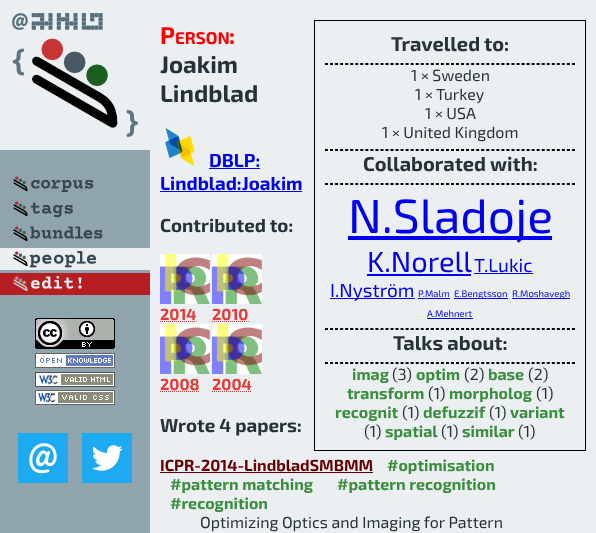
(async () => {
  const canvas = document.querySelector("canvas");
  canvas.width = 596;
  canvas.height = 533;
  const ctx = canvas.getContext("2d");
  ctx.miterLimit = 4;
  ctx.fontKerning = "normal";
  async function loadImage(src) {
    const img = new Image();
    img.src = src;
    await img.decode();
    return img;
  }
  let path;

  ctx.fillStyle = "#eceff1";
  ctx.fillRect(0, 0, 596, 533);
  ctx.fillStyle = "#90a4ae";
  ctx.fillRect(0, 150, 150, 383);
  ctx.drawImage(await loadImage("img/1.png"), 0, 0, 150, 150);
  ctx.drawImage(await loadImage("img/2.png"), 13, 176, 81, 16);
  ctx.drawImage(await loadImage("img/3.png"), 13, 201, 60, 17);
  ctx.drawImage(await loadImage("img/4.png"), 13, 226, 90, 16);
  ctx.drawImage(await loadImage("img/5.png"), 0, 248, 150, 22);
  ctx.drawImage(await loadImage("img/6.png"), 0, 273, 150, 22);
  ctx.drawImage(await loadImage("img/7.png"), 35, 318, 80, 31);
  ctx.drawImage(await loadImage("img/8.png"), 35, 353, 80, 15);
  ctx.drawImage(await loadImage("img/9.png"), 35, 372, 80, 15);
  ctx.drawImage(await loadImage("img/10.png"), 35, 390, 80, 15);
  ctx.drawImage(await loadImage("img/11.png"), 18, 433, 50, 50);
  ctx.drawImage(await loadImage("img/12.png"), 82, 433, 50, 50);
  ctx.strokeStyle = "#000000";
  ctx.strokeRect(314.5, 20.5, 271, 430);
  path = new Path2D("M325 63.5H575");
  ctx.setLineDash([3, 2.04]);
  ctx.stroke(path);
  ctx.fillStyle = "#000000";
  ctx.fillRect(574, 63, 1, 2);
  path = new Path2D("M325 64.5H575");
  ctx.stroke(path);
  path = new Path2D("M325 149.5H575");
  ctx.stroke(path);
  ctx.fillRect(574, 149, 1, 2);
  path = new Path2D("M325 150.5H575");
  ctx.stroke(path);
  path = new Path2D("M325 183.5H575");
  ctx.stroke(path);
  ctx.fillRect(574, 183, 1, 2);
  path = new Path2D("M325 184.5H575");
  ctx.stroke(path);
  for (const [x, y, w, h, color] of [
    [348, 236, 204, 4, "#0000ee"],
    [367, 274, 104, 2, "#0000ee"],
    [474, 273, 59, 1, "#0000ee"],
    [330, 298, 85, 1, "#0000ee"],
    [418, 298, 32, 1, "#0000ee"],
    [454, 298, 54, 1, "#0000ee"],
    [512, 298, 58, 1, "#0000ee"],
    [427, 318, 46, 1, "#0000ee"],
  ]) {
    ctx.fillStyle = color;
    ctx.fillRect(x, y, w, h);
  }
  path = new Path2D("M325 328.5H575");
  ctx.stroke(path);
  ctx.fillStyle = "#000000";
  ctx.fillRect(574, 328, 1, 2);
  path = new Path2D("M325 329.5H575");
  ctx.stroke(path);
  path = new Path2D("M325 362.5H575");
  ctx.stroke(path);
  ctx.fillRect(574, 362, 1, 2);
  path = new Path2D("M325 363.5H575");
  ctx.stroke(path);
  ctx.drawImage(await loadImage("img/13.png"), 165, 128, 30, 38);
  ctx.fillStyle = "#0000ee";
  ctx.fillRect(209, 168, 51, 1);
  ctx.fillRect(160, 191, 142, 1);
  ctx.drawImage(await loadImage("img/14.png"), 160, 254, 50, 50);
  path = new Path2D("M160 321.5H196.5");
  ctx.strokeStyle = "#e53935";
  ctx.setLineDash([1, 1]);
  ctx.stroke(path);
  ctx.drawImage(await loadImage("img/14.png"), 212, 254, 50, 50);
  path = new Path2D("M212 321.5H248.5");
  ctx.stroke(path);
  ctx.drawImage(await loadImage("img/14.png"), 160, 324, 50, 50);
  path = new Path2D("M160 391.5H199.5");
  ctx.stroke(path);
  ctx.drawImage(await loadImage("img/14.png"), 212, 324, 50, 50);
  path = new Path2D("M212 391.5H251.5");
  ctx.stroke(path);
  ctx.fillStyle = "#660000";
  ctx.fillRect(160, 472, 213, 1);
  ctx.font = "bold 24px 'Exo 2'";
  ctx.fillStyle = "#ff0000";
  ctx.fillText("P", 160, 44);
  ctx.font = "bold 17px 'Exo 2'";
  ctx.fillText("ERSON", 175, 44);
  ctx.font = "bold 24px 'Exo 2'";
  ctx.fillText(":", 229, 44);
  ctx.fillStyle = "#263238";
  ctx.fillText("Joakim", 160, 73);
  ctx.fillText("Lindblad", 160, 102);
  ctx.font = "bold 20px 'Exo 2'";
  ctx.fillText("Travelled to:", 391, 51);
  ctx.font = "16px 'Exo 2'";
  for (const [text, x, y] of [
    ["1 × Sweden", 411, 81],
    ["1 × Turkey", 415, 100],
    ["1 × USA", 425, 119],
    ["1 × United Kingdom", 382, 138],
  ]) {
    ctx.fillText(text, x, y);
  }
  ctx.font = "bold 20px 'Exo 2'";
  ctx.fillText("Collaborated with:", 363, 171);
  ctx.font = "48px 'Exo 2'";
  ctx.fillStyle = "#0000ee";
  ctx.fillText("N.Sladoje", 348, 233);
  ctx.font = "29px 'Exo 2'";
  ctx.fillText("K.Norell", 367, 272);
  ctx.font = "19px 'Exo 2'";
  ctx.fillText("T.Lukic", 474, 272);
  ctx.fillText("I.Nyström", 330, 297);
  ctx.font = "9.5px 'Exo 2'";
  for (const [text, x, y] of [
    ["P.Malm", 418, 297],
    ["E.Bengtsson", 454, 297],
    ["R.Moshavegh", 512, 297],
    ["A.Mehnert", 427, 317],
  ]) {
    ctx.fillText(text, x, y);
  }
  ctx.font = "bold 20px 'Exo 2'";
  ctx.fillStyle = "#263238";
  ctx.fillText("Talks about:", 393, 350);
  ctx.font = "bold 16px 'Exo 2'";
  ctx.fillStyle = "#388e3c";
  ctx.fillText("imag", 352, 380);
  ctx.font = "16px 'Exo 2'";
  ctx.fillStyle = "#263238";
  ctx.fillText("(3)", 392, 380);
  ctx.font = "bold 16px 'Exo 2'";
  ctx.fillStyle = "#388e3c";
  ctx.fillText("optim", 416, 380);
  ctx.font = "16px 'Exo 2'";
  ctx.fillStyle = "#263238";
  ctx.fillText("(2)", 464, 380);
  ctx.font = "bold 16px 'Exo 2'";
  ctx.fillStyle = "#388e3c";
  ctx.fillText("base", 488, 380);
  ctx.font = "16px 'Exo 2'";
  ctx.fillStyle = "#263238";
  ctx.fillText("(2)", 528, 380);
  ctx.font = "bold 16px 'Exo 2'";
  ctx.fillStyle = "#388e3c";
  ctx.fillText("transform", 347, 399);
  ctx.font = "16px 'Exo 2'";
  ctx.fillStyle = "#263238";
  ctx.fillText("(1)", 428, 399);
  ctx.font = "bold 16px 'Exo 2'";
  ctx.fillStyle = "#388e3c";
  ctx.fillText("morpholog", 449, 399);
  ctx.font = "16px 'Exo 2'";
  ctx.fillStyle = "#263238";
  ctx.fillText("(1)", 536, 399);
  ctx.font = "bold 16px 'Exo 2'";
  ctx.fillStyle = "#388e3c";
  ctx.fillText("recognit", 335, 418);
  ctx.font = "16px 'Exo 2'";
  ctx.fillStyle = "#263238";
  ctx.fillText("(1)", 402, 418);
  ctx.font = "bold 16px 'Exo 2'";
  ctx.fillStyle = "#388e3c";
  ctx.fillText("defuzzif", 423, 418);
  ctx.font = "16px 'Exo 2'";
  ctx.fillStyle = "#263238";
  ctx.fillText("(1)", 489, 418);
  ctx.font = "bold 16px 'Exo 2'";
  ctx.fillStyle = "#388e3c";
  ctx.fillText("variant", 510, 418);
  ctx.font = "16px 'Exo 2'";
  ctx.fillStyle = "#263238";
  ctx.fillText("(1)", 364, 437);
  ctx.font = "bold 16px 'Exo 2'";
  ctx.fillStyle = "#388e3c";
  ctx.fillText("spatial", 385, 437);
  ctx.font = "16px 'Exo 2'";
  ctx.fillStyle = "#263238";
  ctx.fillText("(1)", 441, 437);
  ctx.font = "bold 16px 'Exo 2'";
  ctx.fillStyle = "#388e3c";
  ctx.fillText("similar", 462, 437);
  ctx.font = "16px 'Exo 2'";
  ctx.fillStyle = "#263238";
  ctx.fillText("(1)", 518, 437);
  ctx.font = "bold 18.75px 'Exo 2'";
  ctx.fillStyle = "#0000ee";
  ctx.fillText("DBLP:", 209, 167);
  ctx.fillText("Lindblad:Joakim", 160, 190);
  ctx.fillStyle = "#263238";
  ctx.fillText("Contributed to:", 160, 232);
  ctx.font = "bold 16px 'Exo 2'";
  ctx.fillStyle = "#e53935";
  for (const [text, x, y] of [
    ["2014", 160, 320],
    ["2010", 212, 320],
    ["2008", 160, 390],
    ["2004", 212, 390],
  ]) {
    ctx.fillText(text, x, y);
  }
  ctx.font = "bold 18.75px 'Exo 2'";
  ctx.fillStyle = "#263238";
  ctx.fillText("Wrote 4 papers:", 160, 432);
  ctx.font = "bold 16px 'Exo 2'";
  ctx.fillStyle = "#660000";
  ctx.fillText("ICPR-2014-LindbladSMBMM", 160, 471);
  ctx.fillStyle = "#388e3c";
  for (const [text, x, y] of [
    ["#optimisation", 387, 471],
    ["#pattern matching", 170, 490],
    ["#pattern recognition", 337, 490],
    ["#recognition", 170, 509],
  ]) {
    ctx.fillText(text, x, y);
  }
  ctx.font = "16px 'Exo 2'";
  ctx.fillStyle = "#263238";
  ctx.fillText("Optimizing Optics and Imaging for Pattern", 200, 528);
})();
